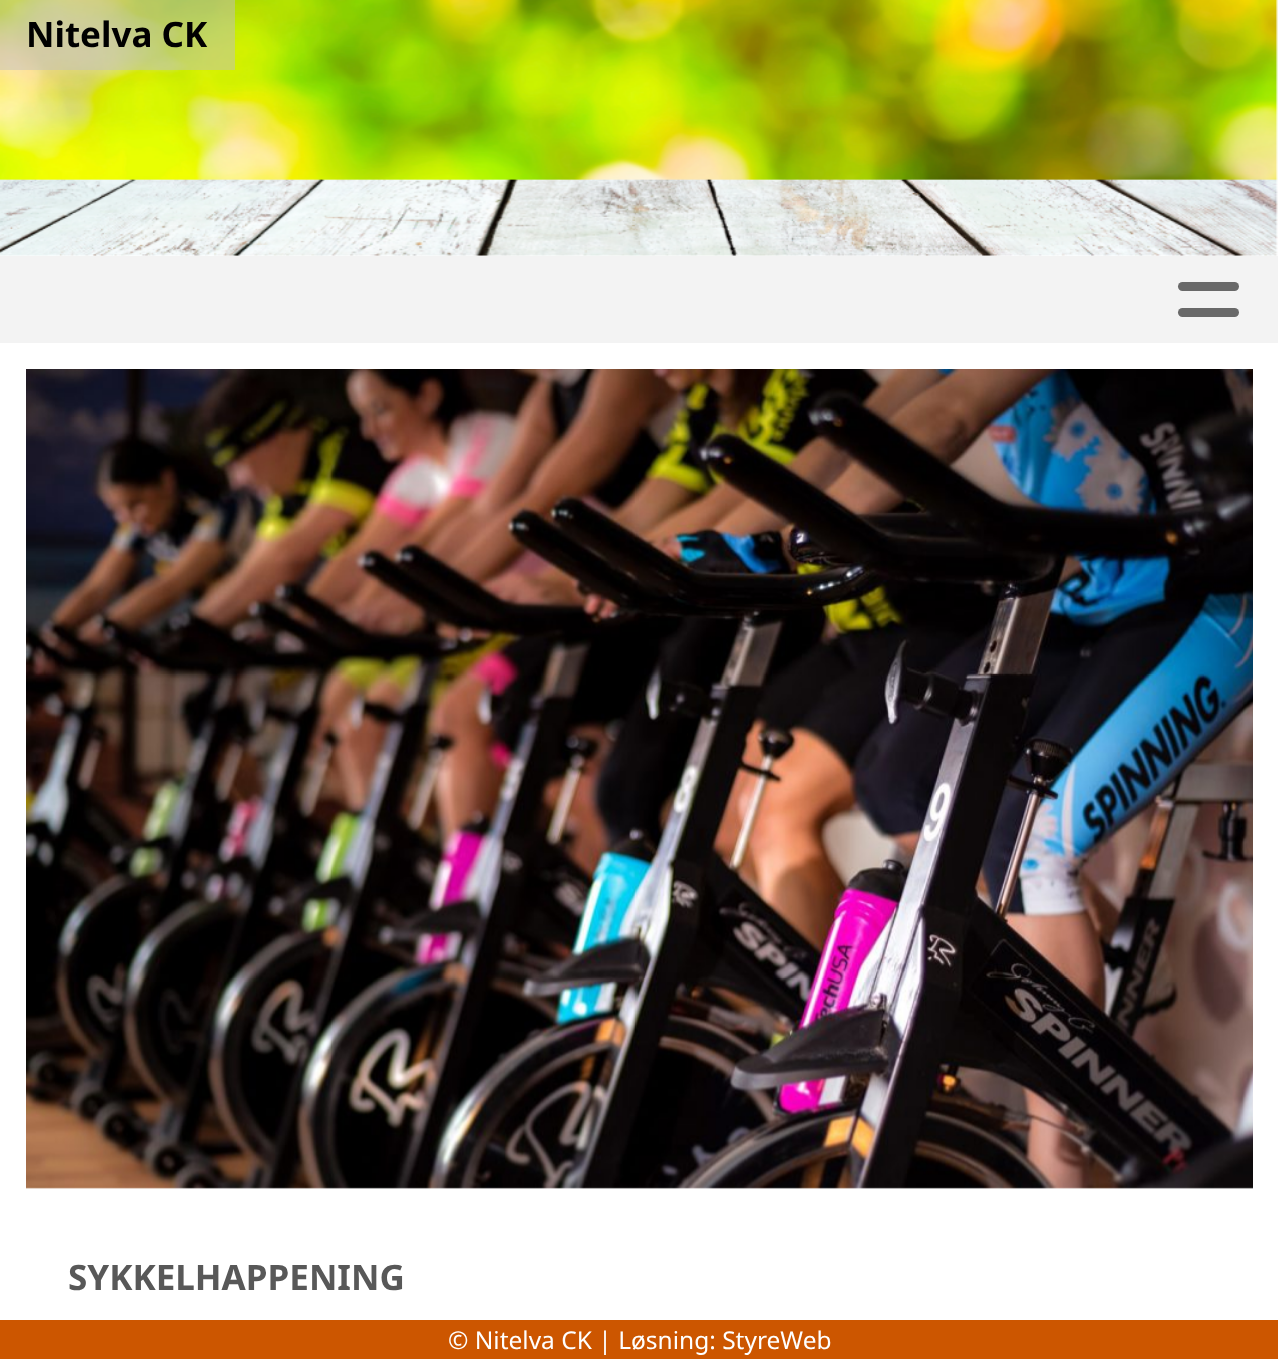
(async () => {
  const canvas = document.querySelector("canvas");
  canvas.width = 1278;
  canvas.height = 1359;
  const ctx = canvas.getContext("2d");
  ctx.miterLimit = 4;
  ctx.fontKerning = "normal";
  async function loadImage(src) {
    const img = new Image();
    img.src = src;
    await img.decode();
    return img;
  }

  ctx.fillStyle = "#ffffff";
  ctx.fillRect(0, 0, 1278, 1359);
  ctx.drawImage(await loadImage("img/1.png"), 0, 0, 1278, 256);
  ctx.fillStyle = "rgba(191, 191, 191, 0.5)";
  ctx.fillRect(0, 0, 235, 70);
  ctx.fillStyle = "#f3f3f3";
  ctx.fillRect(0, 256, 1278, 87);
  ctx.fillStyle = "#696969";
  ctx.beginPath();
  ctx.roundRect(1178, 282, 61, 9, 4.5);
  ctx.fill();
  ctx.beginPath();
  ctx.roundRect(1178, 308, 61, 9, 4.5);
  ctx.fill();
  ctx.drawImage(await loadImage("img/2.png"), 26, 369, 1227, 820);
  ctx.fillStyle = "#cc5600";
  ctx.fillRect(0, 1320, 1278, 39);
  ctx.font = "bold 35px Noto Sans";
  ctx.fillStyle = "#000000";
  ctx.fillText("Nitelva CK", 26, 47);
  ctx.fillStyle = "#585858";
  ctx.fillText("SYKKELHAPPENING", 68, 1290);
  ctx.font = "24.5px Noto Sans";
  ctx.fillStyle = "#ffffff";
  ctx.fillText("© Nitelva CK | Løsning: StyreWeb", 448, 1349);
})();
